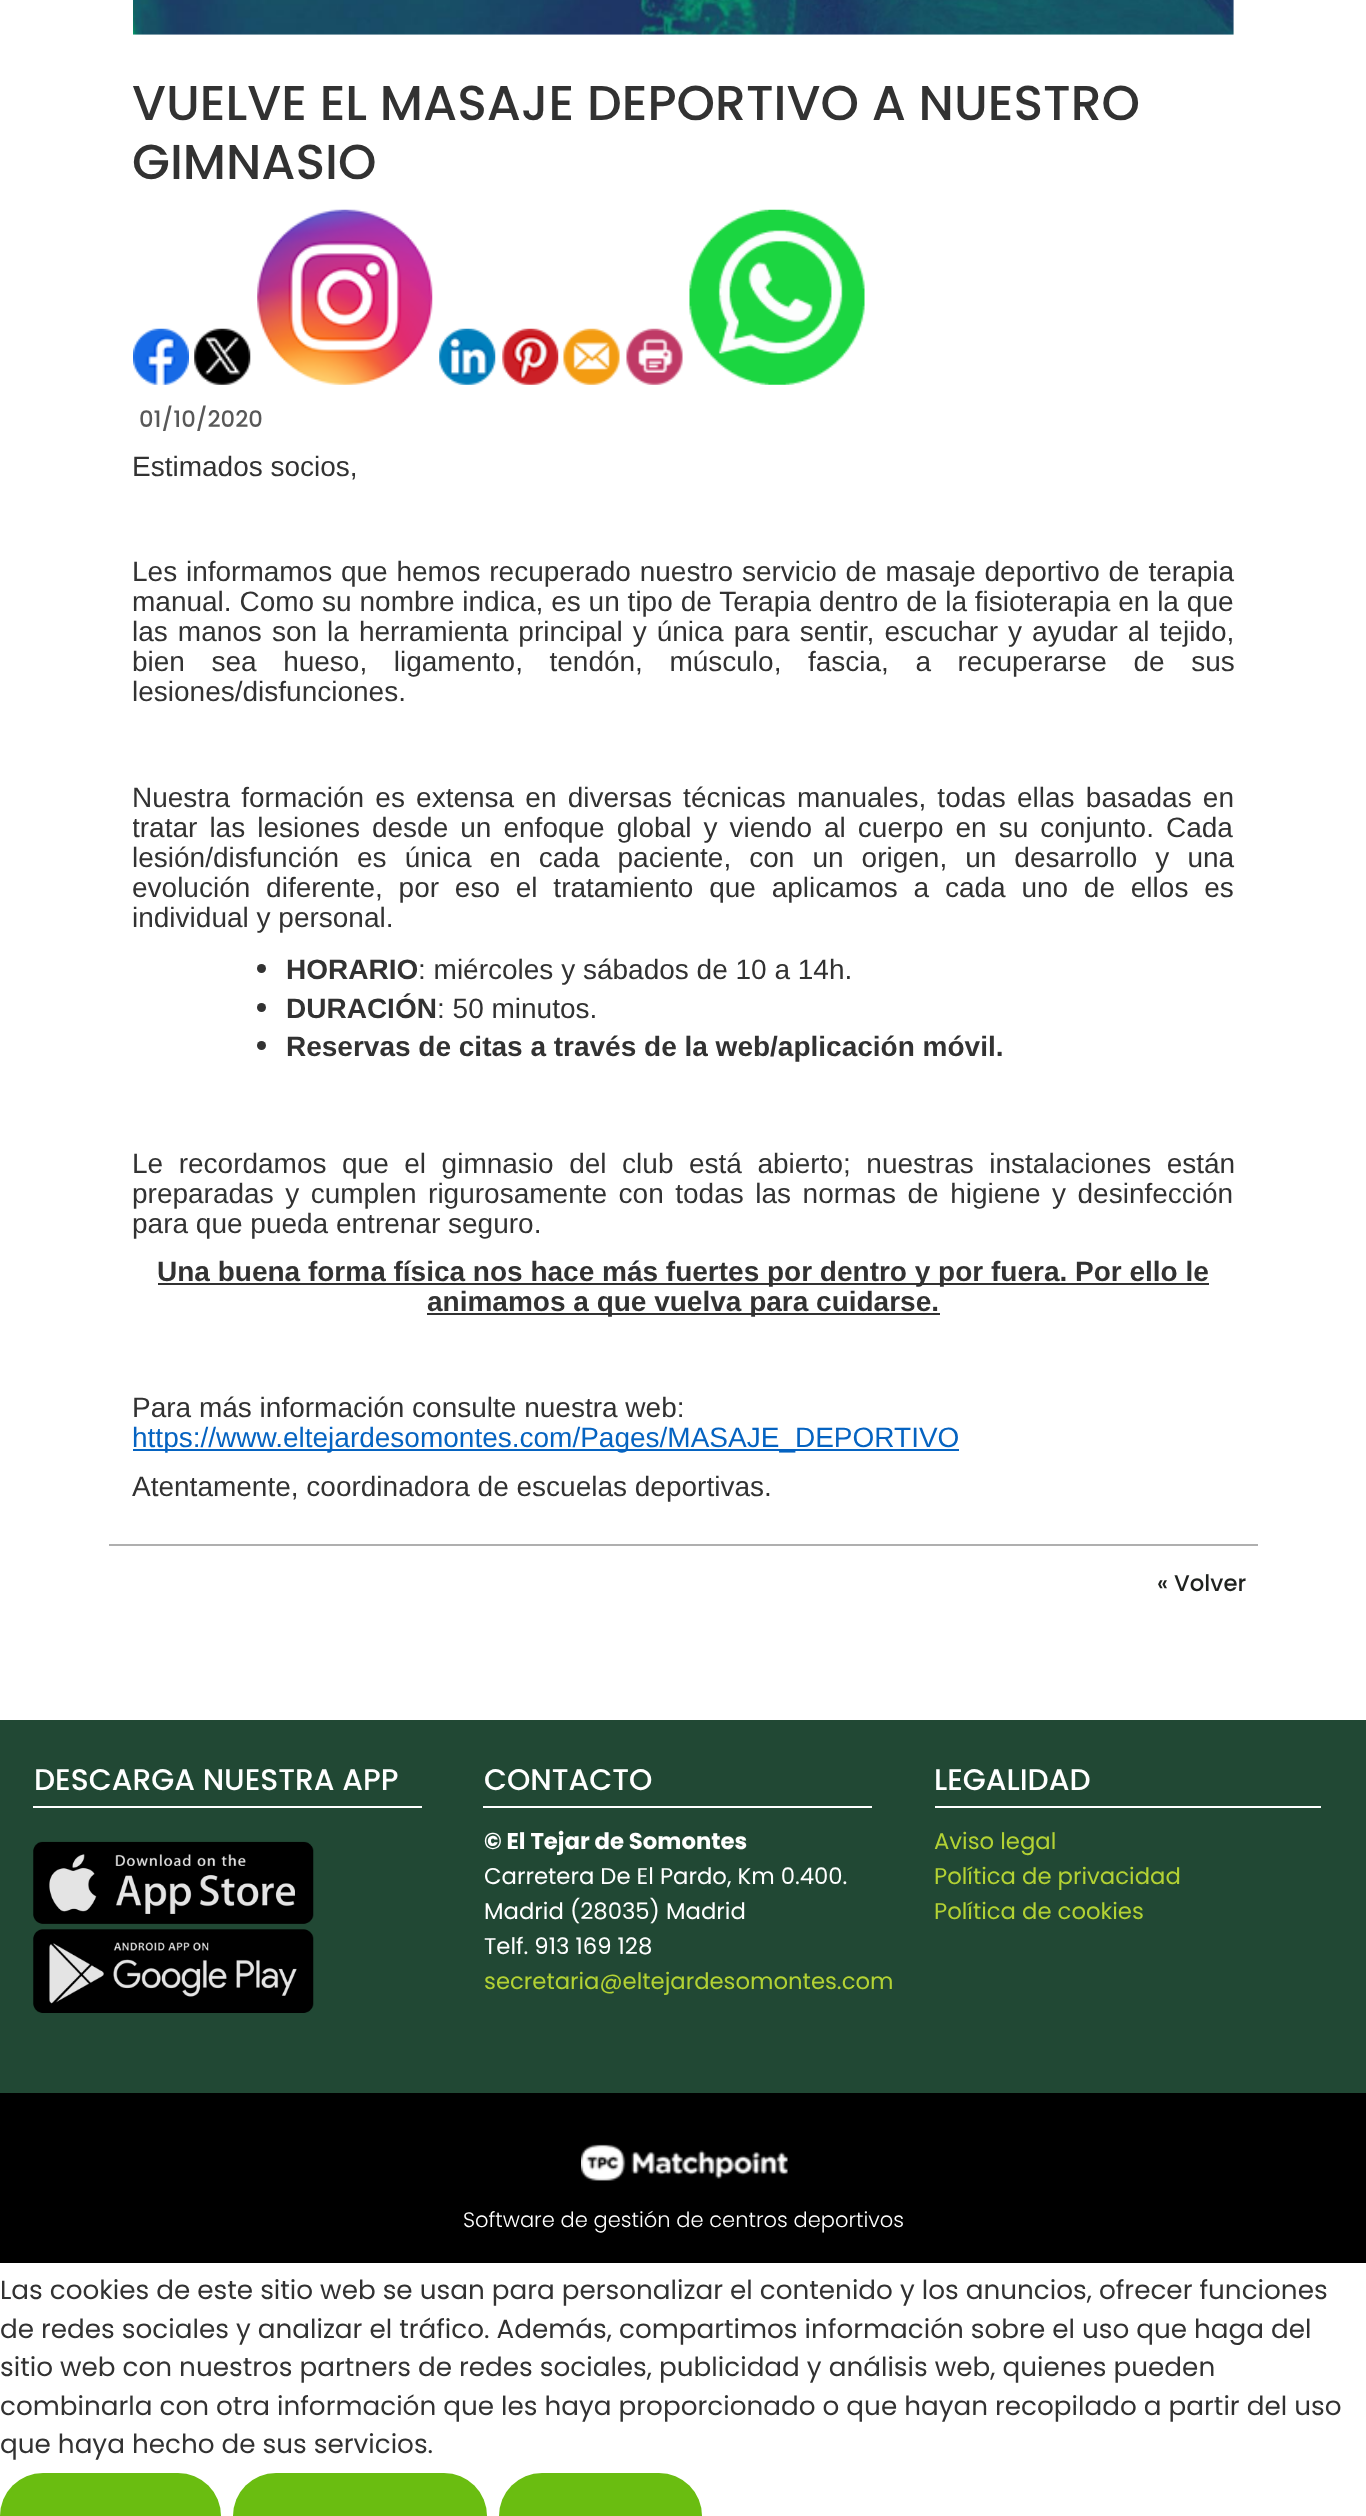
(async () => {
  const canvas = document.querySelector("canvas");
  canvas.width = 1366;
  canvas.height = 2516;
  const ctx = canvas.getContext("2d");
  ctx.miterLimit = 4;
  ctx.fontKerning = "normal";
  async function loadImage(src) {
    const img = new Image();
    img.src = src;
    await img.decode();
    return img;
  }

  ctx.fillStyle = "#ffffff";
  ctx.fillRect(0, 0, 1366, 2516);
  ctx.fillStyle = "#afafaf";
  ctx.fillRect(109, 1544, 1149, 2);
  ctx.drawImage(await loadImage("img/1.png"), 133, 0, 1101, 35);
  ctx.drawImage(await loadImage("img/2.png"), 133, 328, 56, 57);
  ctx.drawImage(await loadImage("img/3.png"), 194, 328, 57, 57);
  ctx.drawImage(await loadImage("img/4.png"), 257, 209, 176, 176);
  ctx.drawImage(await loadImage("img/5.png"), 439, 328, 57, 57);
  ctx.drawImage(await loadImage("img/6.png"), 502, 328, 57, 57);
  ctx.drawImage(await loadImage("img/7.png"), 563, 328, 57, 57);
  ctx.drawImage(await loadImage("img/8.png"), 626, 328, 57, 57);
  ctx.drawImage(await loadImage("img/9.png"), 689, 209, 176, 176);
  ctx.fillStyle = "#323232";
  ctx.beginPath();
  ctx.arc(261.5, 968.5, 4.5, 0, Math.PI * 2);
  ctx.fill();
  ctx.beginPath();
  ctx.arc(261.5, 1007.5, 4.5, 0, Math.PI * 2);
  ctx.fill();
  ctx.beginPath();
  ctx.arc(261.5, 1045.5, 4.5, 0, Math.PI * 2);
  ctx.fill();
  for (const [x, y, w, h, color] of [
    [158, 1283, 1051, 2, "#323232"],
    [427, 1313, 513, 2, "#323232"],
    [133, 1449, 826, 2, "#0563c1"],
    [0, 1720, 1366, 373, "#214834"],
    [33, 1806, 389, 2, "#ffffff"],
  ]) {
    ctx.fillStyle = color;
    ctx.fillRect(x, y, w, h);
  }
  ctx.drawImage(await loadImage("img/10.png"), 33, 1841, 281, 83);
  ctx.drawImage(await loadImage("img/11.png"), 33, 1929, 281, 84);
  for (const [x, y, w, h, color] of [
    [483, 1806, 389, 2, "#ffffff"],
    [935, 1806, 386, 2, "#ffffff"],
    [0, 2093, 1366, 170, "#000000"],
  ]) {
    ctx.fillStyle = color;
    ctx.fillRect(x, y, w, h);
  }
  ctx.drawImage(await loadImage("img/12.png"), 581, 2144, 207, 37);
  ctx.fillStyle = "#6abd11";
  ctx.beginPath();
  ctx.roundRect(0, 2473, 221, 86, 43);
  ctx.fill();
  ctx.beginPath();
  ctx.roundRect(233, 2473, 254, 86, 43);
  ctx.fill();
  ctx.beginPath();
  ctx.roundRect(499, 2473, 203, 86, 43);
  ctx.fill();
  ctx.font = "500 49px Poppins";
  ctx.fillStyle = "#323232";
  ctx.fillText("VUELVE EL MASAJE DEPORTIVO A NUESTRO", 132, 120);
  ctx.fillText("GIMNASIO", 132, 179);
  ctx.font = "500 22.75px Poppins";
  ctx.fillStyle = "#585858";
  ctx.fillText("01/10/2020", 139, 427);
  ctx.font = "28px Liberation Sans";
  ctx.fillStyle = "#323232";
  ctx.fillText("Estimados socios,", 132, 476);
  ctx.wordSpacing = "1px";
  ctx.fillText("Les informamos que hemos recuperado nuestro servicio de masaje deportivo de terapia", 132, 581);
  ctx.wordSpacing = "0.1px";
  ctx.fillText("manual. Como su nombre indica, es un tipo de Terapia dentro de la fisioterapia en la que", 132, 611);
  ctx.wordSpacing = "2.25px";
  ctx.fillText("las manos son la herramienta principal y única para sentir, escuchar y ayudar al tejido,", 132, 641);
  ctx.wordSpacing = "18.75px";
  ctx.fillText("bien sea hueso, ligamento, tendón, músculo, fascia, a recuperarse de sus", 132, 671);
  ctx.wordSpacing = "0px";
  ctx.fillText("lesiones/disfunciones.", 132, 701);
  ctx.wordSpacing = "3.4px";
  ctx.fillText("Nuestra formación es extensa en diversas técnicas manuales, todas ellas basadas en", 132, 807);
  ctx.save();
  ctx.beginPath();
  ctx.rect(133, 0, 1101, 1519);
  ctx.clip();
  ctx.wordSpacing = "4.25px";
  ctx.fillText("tratar las lesiones desde un enfoque global y viendo al cuerpo en su conjunto. Cada", 132, 837);
  ctx.restore();
  ctx.wordSpacing = "10.25px";
  ctx.fillText("lesión/disfunción es única en cada paciente, con un origen, un desarrollo y una", 132, 867);
  ctx.wordSpacing = "8px";
  ctx.fillText("evolución diferente, por eso el tratamiento que aplicamos a cada uno de ellos es", 132, 897);
  ctx.wordSpacing = "0px";
  ctx.fillText("individual y personal.", 132, 927);
  ctx.font = "bold 28px Liberation Sans";
  ctx.fillText("HORARIO", 286, 979);
  ctx.font = "28px Liberation Sans";
  ctx.fillText(": miércoles y sábados de 10 a 14h.", 418, 979);
  ctx.font = "bold 28px Liberation Sans";
  ctx.fillText("DURACIÓN", 286, 1018);
  ctx.font = "28px Liberation Sans";
  ctx.fillText(": 50 minutos.", 437, 1018);
  ctx.font = "bold 28px Liberation Sans";
  ctx.fillText("Reservas de citas a través de la web/aplicación móvil.", 286, 1056);
  ctx.wordSpacing = "7.75px";
  ctx.font = "28px Liberation Sans";
  ctx.fillText("Le recordamos que el gimnasio del club está abierto; nuestras instalaciones están", 132, 1173);
  ctx.wordSpacing = "3.75px";
  ctx.fillText("preparadas y cumplen rigurosamente con todas las normas de higiene y desinfección", 132, 1203);
  ctx.wordSpacing = "0px";
  ctx.fillText("para que pueda entrenar seguro.", 132, 1233);
  ctx.font = "bold 28px Liberation Sans";
  ctx.fillText("Una buena forma física nos hace más fuertes por dentro y por fuera. Por ello le", 157, 1281);
  ctx.fillText("animamos a que vuelva para cuidarse.", 427, 1311);
  ctx.font = "28px Liberation Sans";
  ctx.fillText("Para más información consulte nuestra web:", 132, 1417);
  ctx.fillStyle = "#0563c1";
  ctx.fillText("https://www.eltejardesomontes.com/Pages/MASAJE_DEPORTIVO", 132, 1447);
  ctx.fillStyle = "#323232";
  ctx.fillText("Atentamente, coordinadora de escuelas deportivas.", 132, 1496);
  ctx.font = "500 22.75px Poppins";
  ctx.fillStyle = "#1f221f";
  ctx.fillText("« Volver", 1157, 1591);
  ctx.font = "500 29.75px Poppins";
  ctx.fillStyle = "#ffffff";
  ctx.fillText("DESCARGA NUESTRA APP", 34, 1790);
  ctx.fillText("CONTACTO", 484, 1790);
  ctx.font = "bold 22.75px Poppins";
  ctx.fillText("© El Tejar de Somontes", 484, 1849);
  ctx.font = "22.75px Poppins";
  for (const [text, x, y] of [
    ["Carretera De El Pardo, Km 0.400.", 484, 1884],
    ["Madrid (28035) Madrid", 484, 1919],
    ["Telf. 913 169 128", 484, 1954],
  ]) {
    ctx.fillText(text, x, y);
  }
  ctx.fillStyle = "#b3d234";
  ctx.fillText("secretaria@eltejardesomontes.com", 484, 1989);
  ctx.font = "500 29.75px Poppins";
  ctx.fillStyle = "#ffffff";
  ctx.fillText("LEGALIDAD", 934, 1790);
  ctx.font = "22.75px Poppins";
  ctx.fillStyle = "#b3d234";
  for (const [text, x, y] of [
    ["Aviso legal", 934, 1849],
    ["Política de privacidad", 934, 1884],
    ["Política de cookies", 934, 1919],
  ]) {
    ctx.fillText(text, x, y);
  }
  ctx.font = "300 21px Poppins";
  ctx.fillStyle = "#ffffff";
  ctx.fillText("Software de gestión de centros deportivos", 463, 2227);
  ctx.font = "26.25px Poppins";
  ctx.fillStyle = "#323232";
  for (const [text, x, y] of [
    ["Las cookies de este sitio web se usan para personalizar el contenido y los anuncios, ofrecer funciones", 0, 2299],
    ["de redes sociales y analizar el tráfico. Además, compartimos información sobre el uso que haga del", 0, 2338],
    ["sitio web con nuestros partners de redes sociales, publicidad y análisis web, quienes pueden", 0, 2376],
    ["combinarla con otra información que les haya proporcionado o que hayan recopilado a partir del uso", 0, 2415],
    ["que haya hecho de sus servicios.", 0, 2453],
  ]) {
    ctx.fillText(text, x, y);
  }
})();
